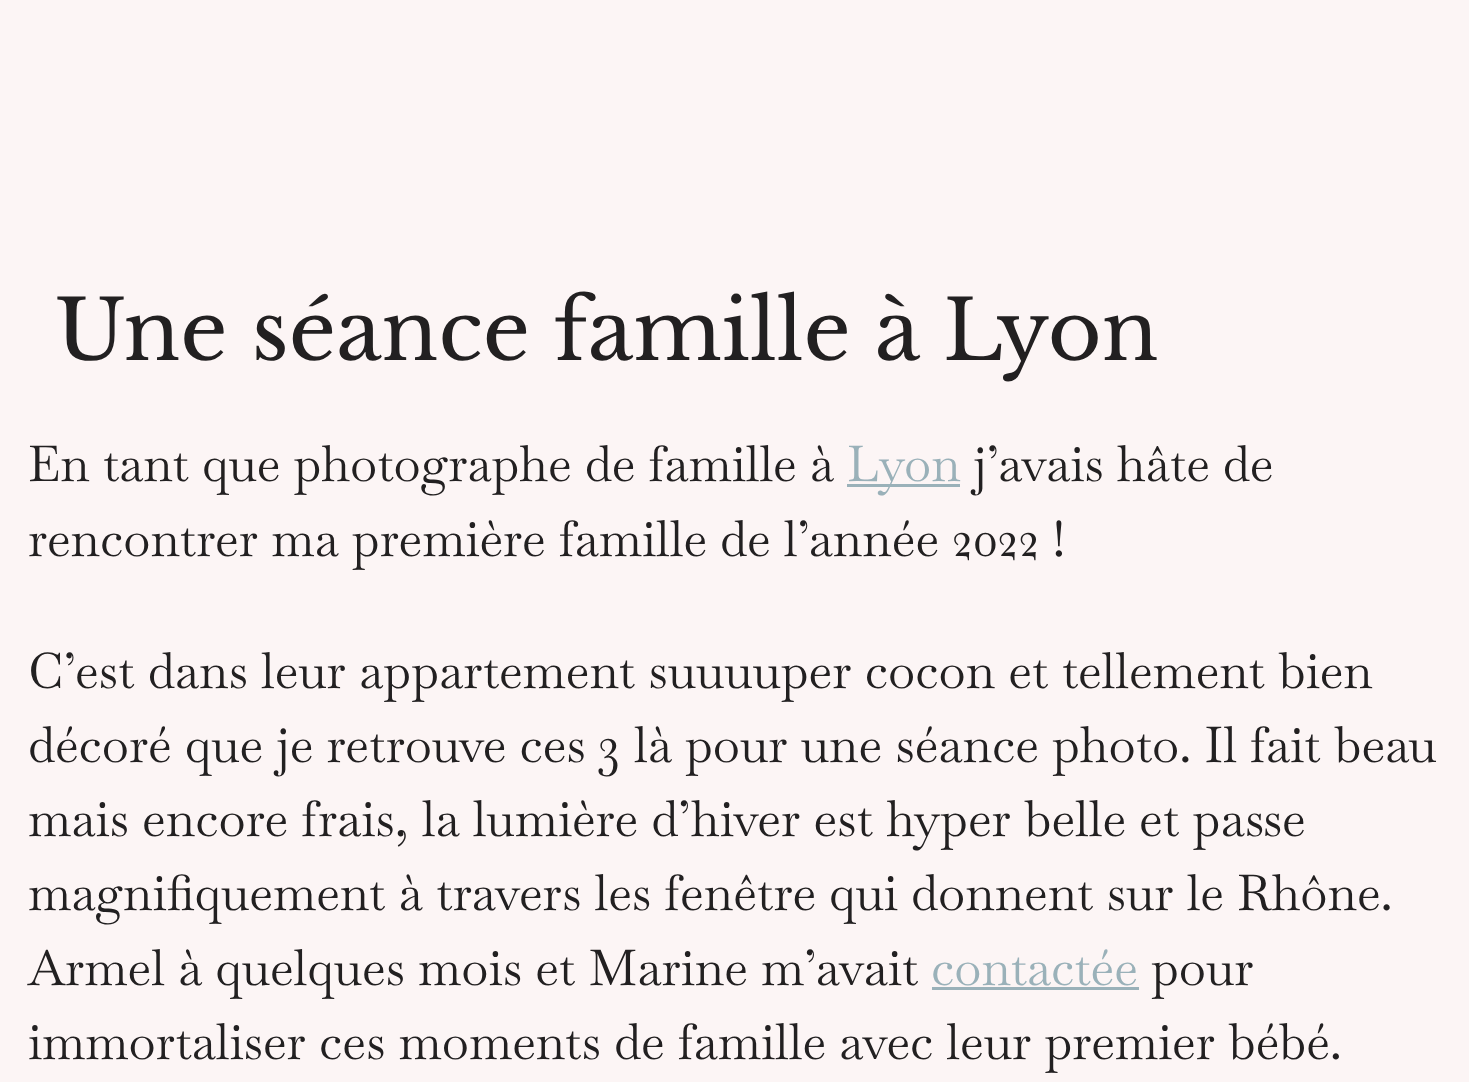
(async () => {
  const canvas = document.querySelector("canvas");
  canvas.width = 1469;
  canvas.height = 1082;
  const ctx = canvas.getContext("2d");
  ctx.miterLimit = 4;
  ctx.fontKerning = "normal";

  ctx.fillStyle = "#fcf5f5";
  ctx.fillRect(0, 0, 1469, 1082);
  ctx.fillStyle = "#9ab1b9";
  ctx.fillRect(847, 484, 113, 3);
  ctx.fillRect(932, 987, 207, 3);
  ctx.font = "82.5px Libre Baskerville";
  ctx.fillStyle = "#222021";
  ctx.fillText("Une séance famille à Lyon", 55, 360);
  ctx.font = "49.5px Baskervville";
  ctx.fillText("En tant que photographe de famille à", 28, 481);
  ctx.fillStyle = "#9ab1b9";
  ctx.fillText("Lyon", 847, 481);
  ctx.fillStyle = "#222021";
  for (const [text, x, y] of [
    ["j’avais hâte de", 973, 481],
    ["rencontrer ma première famille de l’année 2022 !", 28, 556],
    ["C’est dans leur appartement suuuuper cocon et tellement bien", 28, 688],
    ["décoré que je retrouve ces 3 là pour une séance photo. Il fait beau", 28, 762],
    ["mais encore frais, la lumière d’hiver est hyper belle et passe", 28, 836],
    ["magnifiquement à travers les fenêtre qui donnent sur le Rhône.", 28, 910],
    ["Armel à quelques mois et Marine m’avait", 28, 985],
  ]) {
    ctx.fillText(text, x, y);
  }
  ctx.fillStyle = "#9ab1b9";
  ctx.fillText("contactée", 931, 985);
  ctx.fillStyle = "#222021";
  ctx.fillText("pour", 1151, 985);
  ctx.fillText("immortaliser ces moments de famille avec leur premier bébé.", 28, 1059);
})();
